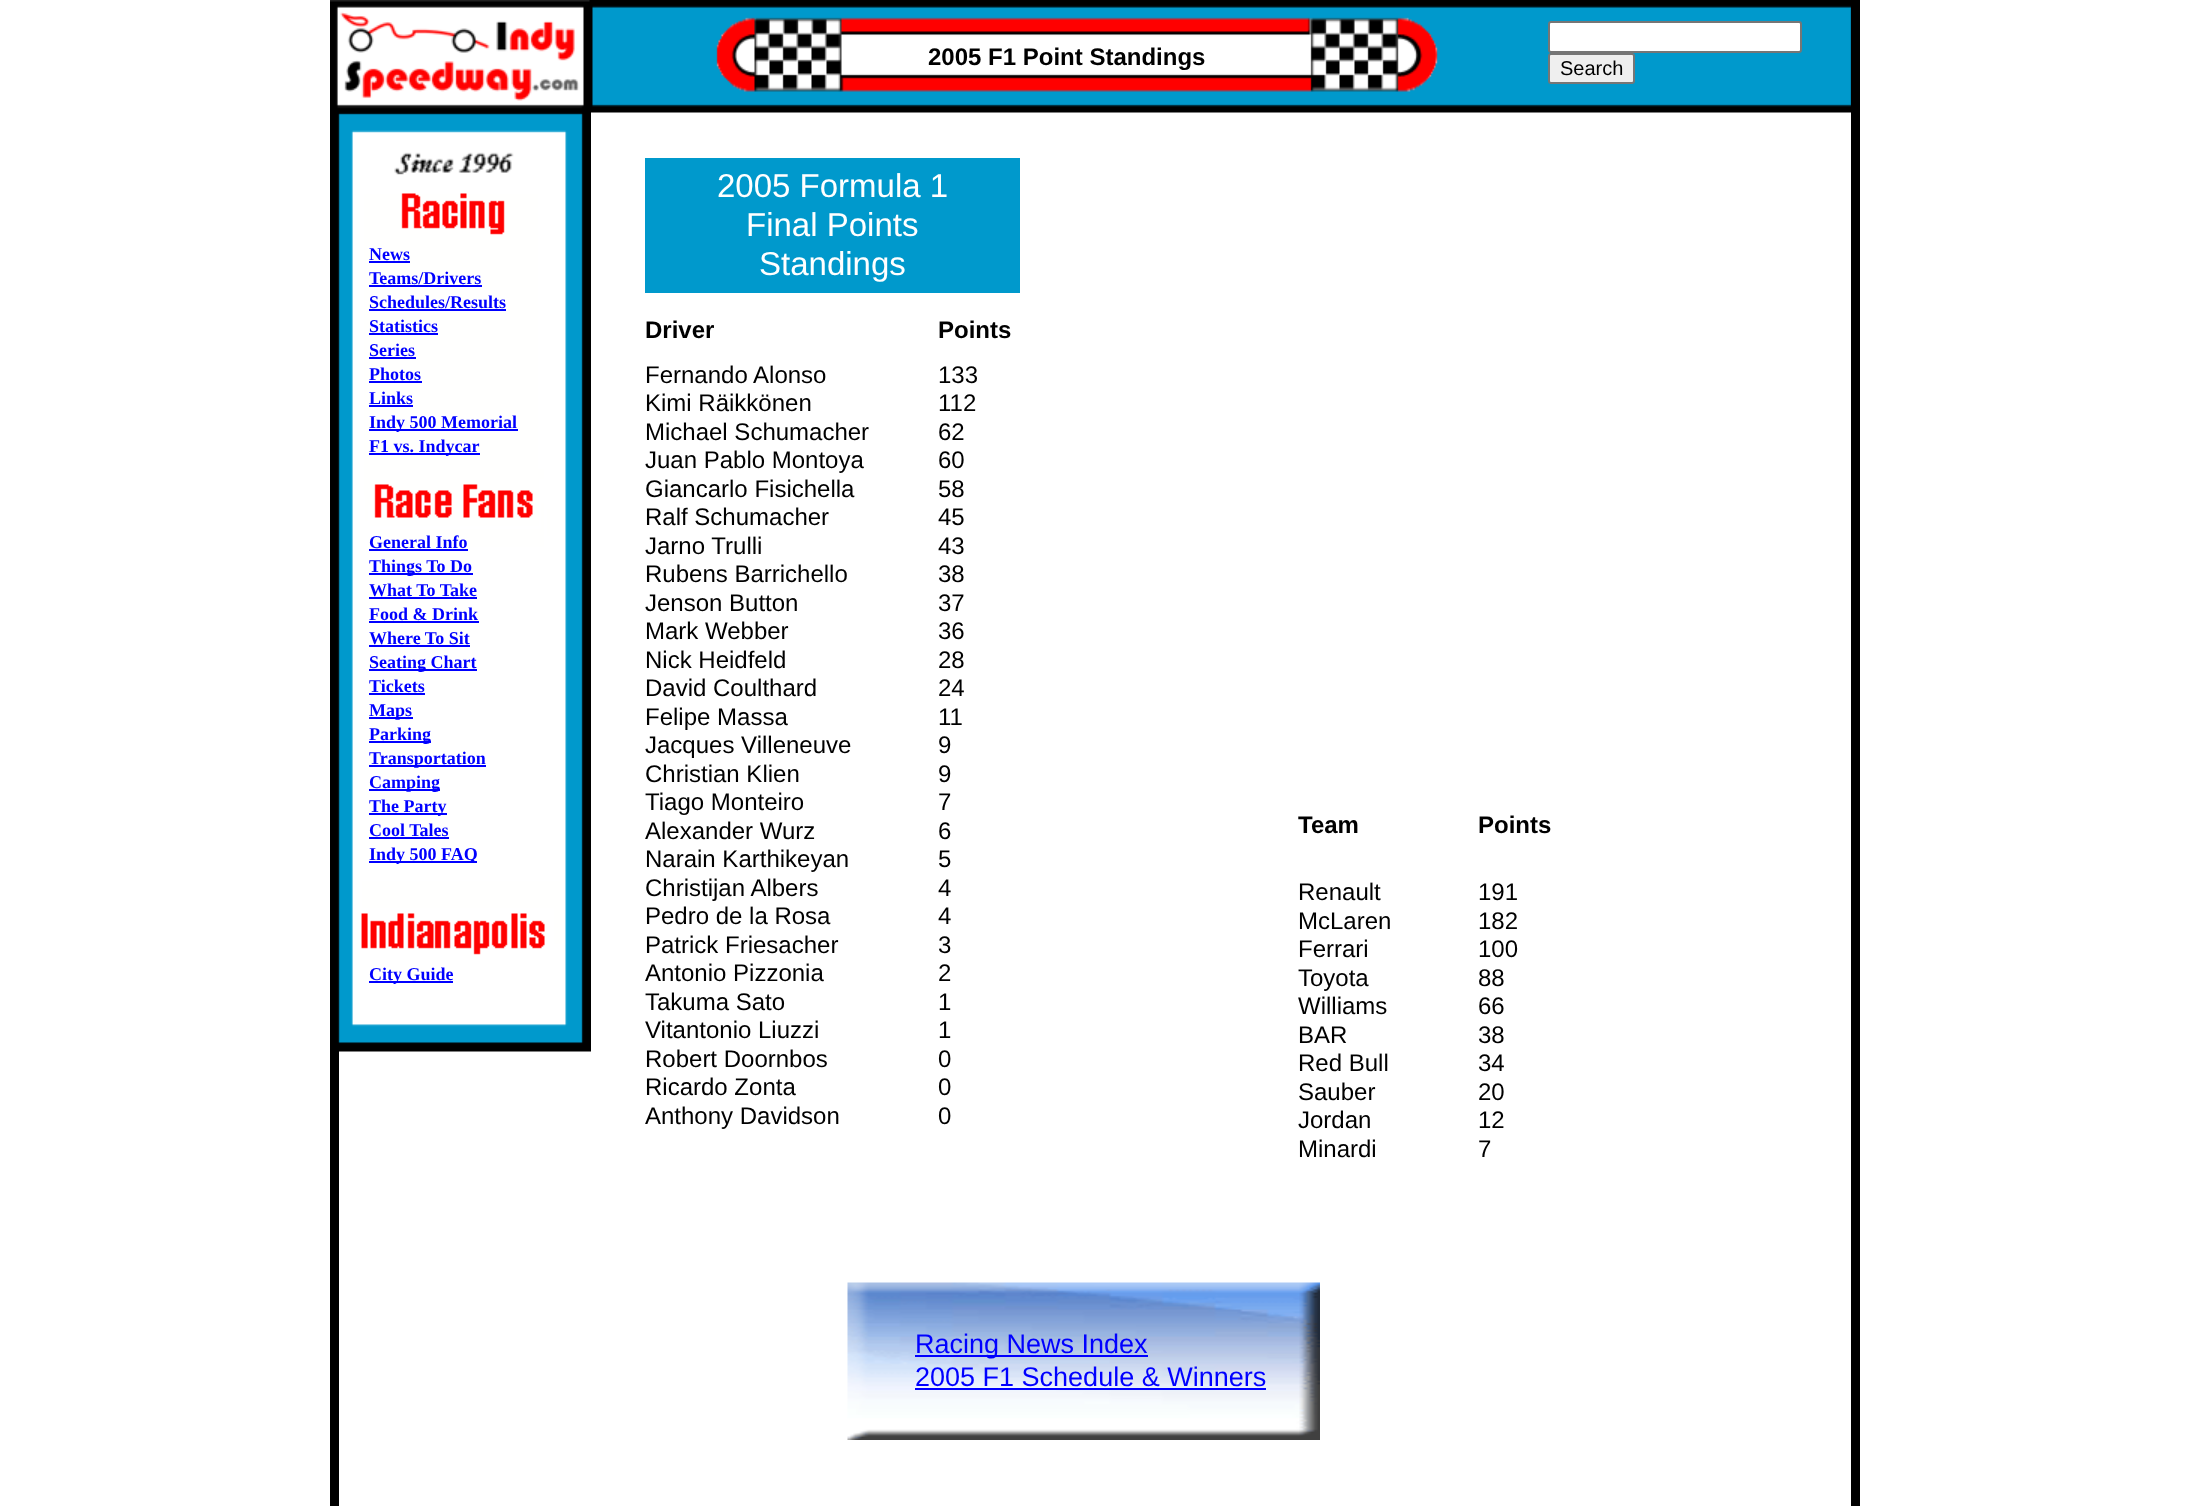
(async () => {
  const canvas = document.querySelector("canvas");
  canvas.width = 2189;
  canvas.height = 1506;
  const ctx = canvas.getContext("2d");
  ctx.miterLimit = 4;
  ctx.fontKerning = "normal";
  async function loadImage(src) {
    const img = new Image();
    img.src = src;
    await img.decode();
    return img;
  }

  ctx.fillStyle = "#ffffff";
  ctx.fillRect(0, 0, 2189, 1506);
  ctx.drawImage(await loadImage("img/1.png"), 330, 0, 1530, 113);
  ctx.beginPath();
  ctx.roundRect(1549, 22, 252, 30, 2);
  ctx.fill();
  ctx.strokeStyle = "#767676";
  ctx.lineWidth = 2;
  ctx.stroke();
  ctx.fillStyle = "#efefef";
  ctx.beginPath();
  ctx.roundRect(1549, 54, 85, 29, 2);
  ctx.fill();
  ctx.stroke();
  ctx.fillStyle = "#000000";
  ctx.fillRect(1851, 6, 9, 1500);
  ctx.fillRect(330, 112, 9, 1394);
  ctx.drawImage(await loadImage("img/2.png"), 337, 106, 254, 946);
  for (const [x, y, w, h, color] of [
    [645, 158, 375, 135, "#0099cc"],
    [369, 261, 41, 2, "#0000ff"],
    [369, 285, 113, 2, "#0000ff"],
    [369, 309, 137, 2, "#0000ff"],
    [369, 333, 69, 2, "#0000ff"],
    [369, 357, 47, 2, "#0000ff"],
    [369, 381, 53, 2, "#0000ff"],
    [369, 405, 44, 2, "#0000ff"],
    [369, 429, 149, 2, "#0000ff"],
    [369, 453, 111, 2, "#0000ff"],
    [369, 549, 99, 2, "#0000ff"],
    [369, 573, 104, 2, "#0000ff"],
    [369, 597, 108, 2, "#0000ff"],
    [369, 621, 110, 2, "#0000ff"],
    [369, 645, 101, 2, "#0000ff"],
    [369, 669, 108, 2, "#0000ff"],
    [369, 693, 56, 2, "#0000ff"],
    [369, 717, 44, 2, "#0000ff"],
    [369, 741, 62, 2, "#0000ff"],
    [369, 765, 117, 2, "#0000ff"],
    [369, 789, 71, 2, "#0000ff"],
    [369, 813, 78, 2, "#0000ff"],
    [369, 837, 80, 2, "#0000ff"],
    [369, 861, 108, 2, "#0000ff"],
    [369, 981, 84, 2, "#0000ff"],
  ]) {
    ctx.fillStyle = color;
    ctx.fillRect(x, y, w, h);
  }
  ctx.drawImage(await loadImage("img/3.png"), 847, 1282, 473, 158);
  ctx.fillRect(915, 1355, 233, 2);
  ctx.fillRect(915, 1388, 351, 2);
  ctx.font = "bold 24px Liberation Sans";
  ctx.fillStyle = "#000000";
  ctx.fillText("2005 F1 Point Standings", 928, 65);
  ctx.font = "20px Liberation Sans";
  ctx.fillText("Search", 1560, 75);
  ctx.font = "33px Liberation Sans";
  ctx.fillStyle = "#ffffff";
  for (const [text, x, y] of [
    ["2005 Formula 1", 717, 197],
    ["Final Points", 746, 236],
    ["Standings", 759, 275],
  ]) {
    ctx.fillText(text, x, y);
  }
  ctx.font = "bold 18px Liberation Serif";
  ctx.fillStyle = "#0000ff";
  for (const [text, x, y] of [
    ["News", 369, 260],
    ["Teams/Drivers", 369, 284],
    ["Schedules/Results", 369, 308],
    ["Statistics", 369, 332],
    ["Series", 369, 356],
    ["Photos", 369, 380],
    ["Links", 369, 404],
    ["Indy 500 Memorial", 369, 428],
    ["F1 vs. Indycar", 369, 452],
    ["General Info", 369, 548],
    ["Things To Do", 369, 572],
    ["What To Take", 369, 596],
    ["Food & Drink", 369, 620],
    ["Where To Sit", 369, 644],
    ["Seating Chart", 369, 668],
    ["Tickets", 369, 692],
    ["Maps", 369, 716],
    ["Parking", 369, 740],
    ["Transportation", 369, 764],
    ["Camping", 369, 788],
    ["The Party", 369, 812],
    ["Cool Tales", 369, 836],
    ["Indy 500 FAQ", 369, 860],
    ["City Guide", 369, 980],
  ]) {
    ctx.fillText(text, x, y);
  }
  ctx.font = "bold 24px Liberation Sans";
  ctx.fillStyle = "#000000";
  ctx.fillText("Driver", 645, 338);
  ctx.fillText("Points", 938, 338);
  ctx.font = "24px Liberation Sans";
  for (const [text, x, y] of [
    ["Fernando Alonso", 645, 383],
    ["Kimi Räikkönen", 645, 411],
    ["Michael Schumacher", 645, 440],
    ["Juan Pablo Montoya", 645, 468],
    ["Giancarlo Fisichella", 645, 497],
    ["Ralf Schumacher", 645, 525],
    ["Jarno Trulli", 645, 554],
    ["Rubens Barrichello", 645, 582],
    ["Jenson Button", 645, 611],
    ["Mark Webber", 645, 639],
    ["Nick Heidfeld", 645, 668],
    ["David Coulthard", 645, 696],
    ["Felipe Massa", 645, 725],
    ["Jacques Villeneuve", 645, 753],
    ["Christian Klien", 645, 782],
    ["Tiago Monteiro", 645, 810],
    ["Alexander Wurz", 645, 839],
    ["Narain Karthikeyan", 645, 867],
    ["Christijan Albers", 645, 896],
    ["Pedro de la Rosa", 645, 924],
    ["Patrick Friesacher", 645, 953],
    ["Antonio Pizzonia", 645, 981],
    ["Takuma Sato", 645, 1010],
    ["Vitantonio Liuzzi", 645, 1038],
    ["Robert Doornbos", 645, 1067],
    ["Ricardo Zonta", 645, 1095],
    ["Anthony Davidson", 645, 1124],
    ["133", 938, 383],
    ["112", 938, 411],
    ["62", 938, 440],
    ["60", 938, 468],
    ["58", 938, 497],
    ["45", 938, 525],
    ["43", 938, 554],
    ["38", 938, 582],
    ["37", 938, 611],
    ["36", 938, 639],
    ["28", 938, 668],
    ["24", 938, 696],
    ["11", 938, 725],
    ["9", 938, 753],
    ["9", 938, 782],
    ["7", 938, 810],
    ["6", 938, 839],
    ["5", 938, 867],
    ["4", 938, 896],
    ["4", 938, 924],
    ["3", 938, 953],
    ["2", 938, 981],
    ["1", 938, 1010],
    ["1", 938, 1038],
    ["0", 938, 1067],
    ["0", 938, 1095],
    ["0", 938, 1124],
  ]) {
    ctx.fillText(text, x, y);
  }
  ctx.font = "bold 24px Liberation Sans";
  ctx.fillText("Team", 1298, 833);
  ctx.fillText("Points", 1478, 833);
  ctx.font = "24px Liberation Sans";
  for (const [text, x, y] of [
    ["Renault", 1298, 900],
    ["McLaren", 1298, 929],
    ["Ferrari", 1298, 957],
    ["Toyota", 1298, 986],
    ["Williams", 1298, 1014],
    ["BAR", 1298, 1043],
    ["Red Bull", 1298, 1071],
    ["Sauber", 1298, 1100],
    ["Jordan", 1298, 1128],
    ["Minardi", 1298, 1157],
    ["191", 1478, 900],
    ["182", 1478, 929],
    ["100", 1478, 957],
    ["88", 1478, 986],
    ["66", 1478, 1014],
    ["38", 1478, 1043],
    ["34", 1478, 1071],
    ["20", 1478, 1100],
    ["12", 1478, 1128],
    ["7", 1478, 1157],
  ]) {
    ctx.fillText(text, x, y);
  }
  ctx.font = "27px Liberation Sans";
  ctx.fillStyle = "#0000ff";
  ctx.fillText("Racing News Index", 915, 1353);
  ctx.fillText("2005 F1 Schedule & Winners", 915, 1386);
})();
